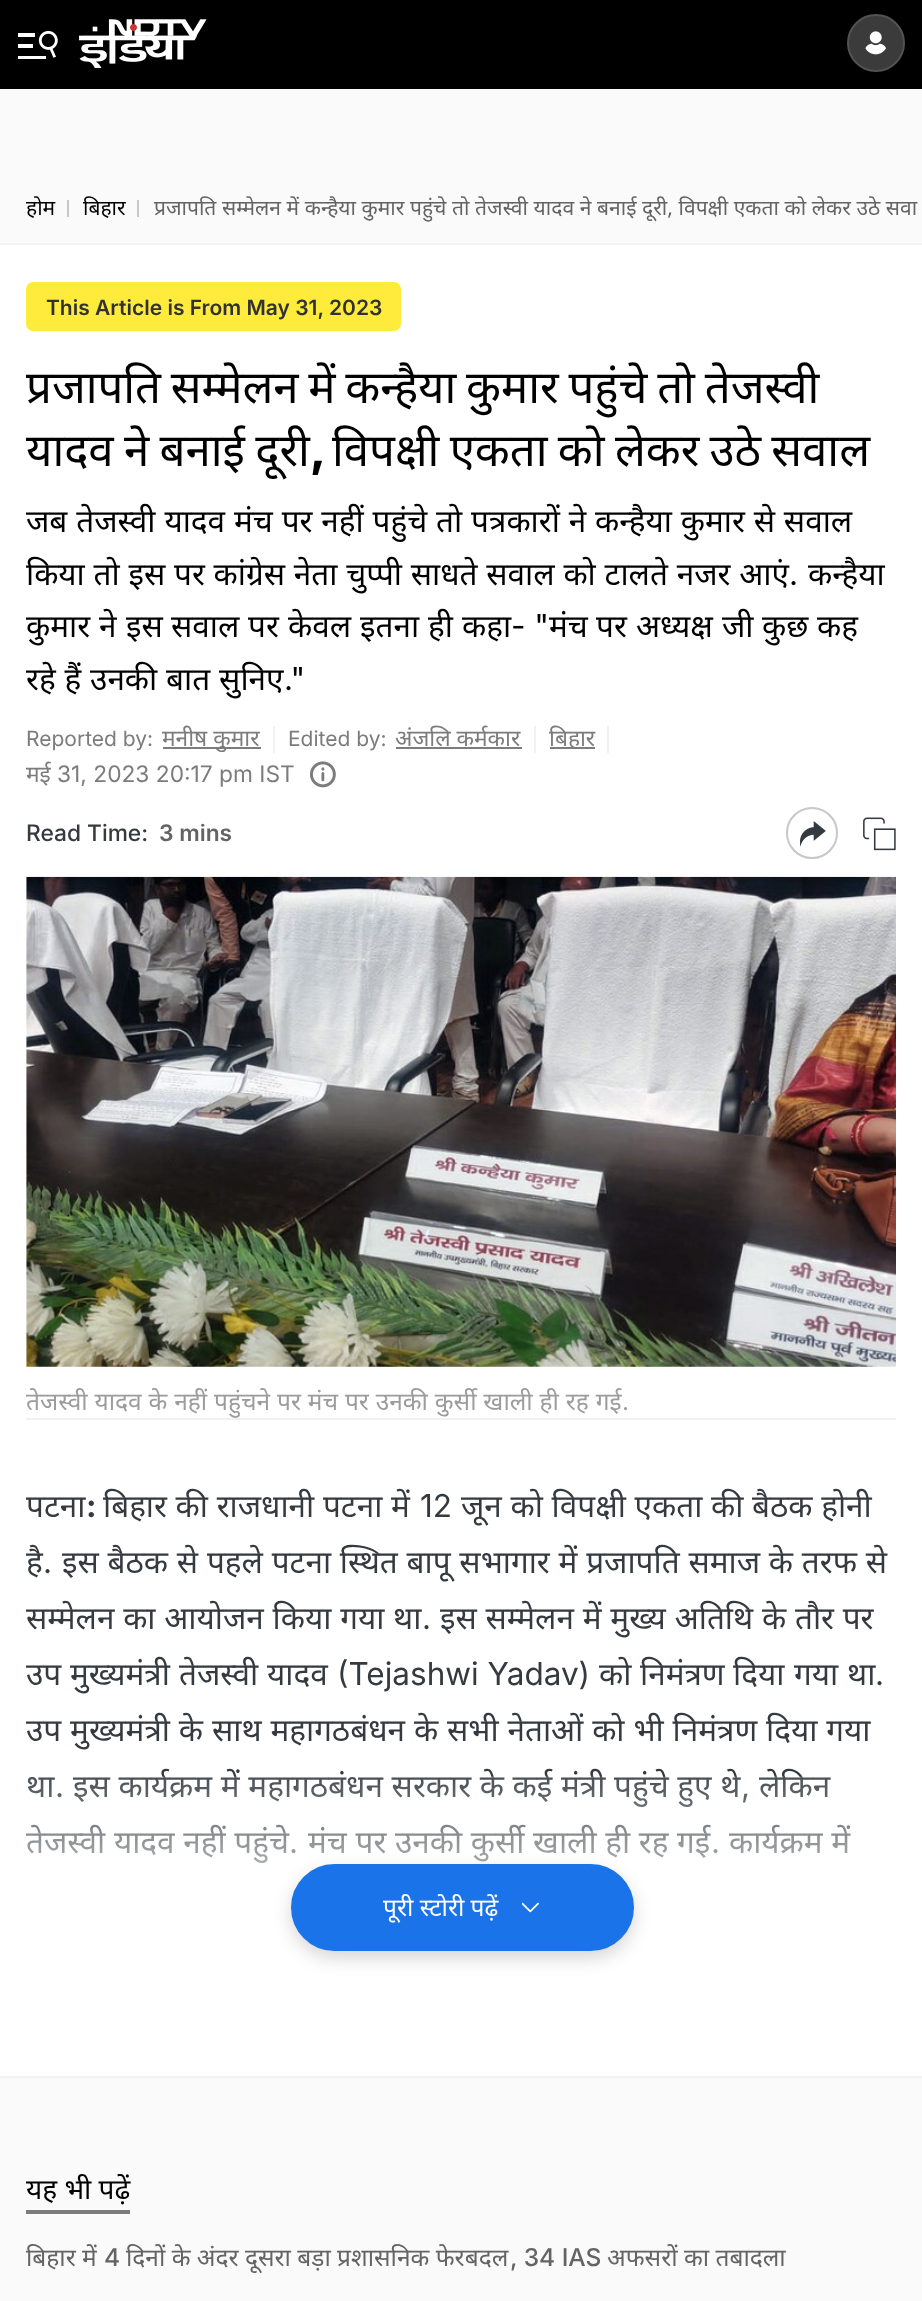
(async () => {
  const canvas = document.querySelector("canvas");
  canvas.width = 922;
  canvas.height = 2301;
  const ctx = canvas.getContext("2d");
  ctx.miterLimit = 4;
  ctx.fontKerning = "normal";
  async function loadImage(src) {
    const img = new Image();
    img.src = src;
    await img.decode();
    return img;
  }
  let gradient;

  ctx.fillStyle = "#fafafa";
  ctx.fillRect(0, 0, 922, 2301);
  ctx.fillStyle = "#000000";
  ctx.fillRect(0, 0, 922, 89);
  ctx.drawImage(await loadImage("img/1.png"), 18, 30, 40, 29);
  ctx.drawImage(await loadImage("img/2.png"), 79, 19, 128, 49);
  ctx.fillStyle = "#3b3b3b";
  ctx.beginPath();
  ctx.arc(876, 43, 28, 0, Math.PI * 2);
  ctx.fill();
  ctx.strokeStyle = "#525252";
  ctx.lineWidth = 2;
  ctx.stroke();
  ctx.drawImage(await loadImage("img/3.png"), 865, 31, 21, 24);
  for (const [x, y, w, h, color] of [
    [67, 200, 2, 17, "#c8c8c8"],
    [137, 200, 2, 17, "#c8c8c8"],
    [0, 245, 922, 1831, "#ffffff"],
    [0, 243, 922, 2, "#f2f2f2"],
    [0, 2076, 922, 2, "#f2f2f2"],
  ]) {
    ctx.fillStyle = color;
    ctx.fillRect(x, y, w, h);
  }
  ctx.fillStyle = "#ffeb3b";
  ctx.beginPath();
  ctx.roundRect(26, 282, 375, 49, 7);
  ctx.fill();
  for (const [x, y, w, h, color] of [
    [163, 747, 98, 2, "#7c7c7c"],
    [273, 726, 2, 27, "#f1f1f1"],
    [396, 747, 126, 2, "#7c7c7c"],
    [534, 726, 2, 27, "#f1f1f1"],
    [550, 747, 45, 2, "#7c7c7c"],
    [607, 726, 2, 27, "#f1f1f1"],
  ]) {
    ctx.fillStyle = color;
    ctx.fillRect(x, y, w, h);
  }
  ctx.drawImage(await loadImage("img/4.png"), 310, 761, 26, 27);
  ctx.beginPath();
  ctx.arc(812, 833, 25, 0, Math.PI * 2);
  ctx.strokeStyle = "#c7c7c7";
  ctx.stroke();
  ctx.drawImage(await loadImage("img/5.png"), 800, 821, 26, 26);
  ctx.drawImage(await loadImage("img/6.png"), 863, 817, 33, 34);
  ctx.drawImage(await loadImage("img/7.png"), 26, 876, 870, 491);
  ctx.fillRect(26, 1418, 870, 2);
  ctx.fillStyle = "#7c7c7c";
  ctx.fillRect(26, 2210, 104, 4);
  ctx.font = "21px Noto Sans";
  ctx.fillStyle = "#000000";
  ctx.fillText("होम", 26, 215);
  ctx.fillText("बिहार", 83, 215);
  ctx.wordSpacing = "0.2px";
  ctx.fillStyle = "#646464";
  ctx.fillText("प्रजापति सम्मेलन में कन्हैया कुमार पहुंचे तो तेजस्वी यादव ने बनाई दूरी, विपक्षी एकता को लेकर उठे सवा", 154, 215);
  ctx.wordSpacing = "0px";
  ctx.font = "600 21px Inter";
  ctx.fillStyle = "#323232";
  ctx.fillText("This Article is From May 31, 2023", 46, 315);
  ctx.wordSpacing = "-2px";
  ctx.font = "45.5px Noto Sans";
  ctx.fillStyle = "#000000";
  ctx.fillText("प्रजापति सम्मेलन में कन्हैया कुमार पहुंचे तो तेजस्वी", 26, 403);
  ctx.wordSpacing = "-1.5px";
  ctx.fillText("यादव ने बनाई दूरी", 26, 466);
  ctx.wordSpacing = "0px";
  ctx.font = "800 45.5px Inter";
  ctx.fillText(",", 310, 466);
  ctx.wordSpacing = "-1.5px";
  ctx.font = "45.5px Noto Sans";
  ctx.fillText("विपक्षी एकता को लेकर उठे सवाल", 332, 466);
  ctx.wordSpacing = "0.7px";
  ctx.font = "31.5px Noto Sans";
  ctx.fillText("जब तेजस्वी यादव मंच पर नहीं पहुंचे तो पत्रकारों ने कन्हैया कुमार से सवाल", 26, 532);
  ctx.wordSpacing = "0.6px";
  ctx.fillText("किया तो इस पर कांग्रेस नेता चुप्पी साधते सवाल को टालते नजर आएं", 26, 585);
  ctx.wordSpacing = "0px";
  ctx.font = "31.5px Inter";
  ctx.fillText(".", 789, 585);
  ctx.font = "31.5px Noto Sans";
  for (const [text, x, y] of [
    ["कन्हैया", 808, 585],
    ["कुमार", 26, 637],
    ["ने", 99, 637],
    ["इस", 126, 637],
    ["सवाल", 171, 637],
    ["पर", 248, 637],
    ["केवल", 288, 637],
    ["इतना", 360, 637],
    ["ही", 428, 637],
    ["कहा", 462, 637],
  ]) {
    ctx.fillText(text, x, y);
  }
  ctx.font = "31.5px Inter";
  ctx.fillText("- \"", 511, 637);
  ctx.font = "31.5px Noto Sans";
  for (const [text, x, y] of [
    ["मंच", 549, 637],
    ["पर", 596, 637],
    ["अध्यक्ष", 636, 637],
    ["जी", 722, 637],
    ["कुछ", 762, 637],
    ["कह", 817, 637],
  ]) {
    ctx.fillText(text, x, y);
  }
  ctx.wordSpacing = "0.7px";
  ctx.fillText("रहे हैं उनकी बात सुनिए", 26, 690);
  ctx.wordSpacing = "0px";
  ctx.font = "31.5px Inter";
  ctx.fillText(".\"", 284, 690);
  ctx.font = "21px Inter";
  ctx.fillStyle = "#7c7c7c";
  ctx.fillText("Reported by:", 26, 746);
  ctx.font = "22.75px Noto Sans";
  ctx.fillText("मनीष कुमार", 162, 746);
  ctx.font = "21px Inter";
  ctx.fillText("Edited by:", 288, 746);
  ctx.font = "22.75px Noto Sans";
  for (const [text, x, y] of [
    ["अंजलि कर्मकार", 395, 746],
    ["बिहार", 549, 746],
    ["मई", 26, 782],
  ]) {
    ctx.fillText(text, x, y);
  }
  ctx.font = "22.75px Inter";
  ctx.fillText("31, 2023 20:17 pm IST", 57, 782);
  ctx.font = "500 22.75px Inter";
  ctx.fillStyle = "#343a40";
  ctx.fillText("Read Time:", 26, 841);
  ctx.font = "600 22.75px Inter";
  ctx.fillStyle = "#646464";
  ctx.fillText("3 mins", 159, 841);
  ctx.save();
  ctx.beginPath();
  ctx.rect(26, 877, 870, 560);
  ctx.clip();
  ctx.wordSpacing = "0.5px";
  ctx.font = "24.5px Noto Sans";
  ctx.fillStyle = "#9c9c9c";
  ctx.fillText("तेजस्वी यादव के नहीं पहुंचने पर मंच पर उनकी कुर्सी खाली ही रह गई", 26, 1410);
  ctx.restore();
  ctx.font = "24.5px Inter";
  ctx.fillStyle = "#9c9c9c";
  ctx.fillText(".", 622, 1410);
  ctx.wordSpacing = "0.5px";
  ctx.font = "31.5px Noto Sans";
  ctx.fillStyle = "#343a40";
  ctx.fillText("बिहार की राजधानी पटना में", 103, 1517);
  ctx.wordSpacing = "0px";
  ctx.font = "31.5px Inter";
  ctx.fillText("12", 420, 1517);
  ctx.wordSpacing = "0.5px";
  ctx.font = "31.5px Noto Sans";
  ctx.fillText("जून को विपक्षी एकता की बैठक होनी", 461, 1517);
  ctx.save();
  ctx.beginPath();
  ctx.rect(26, 1479, 870, 525);
  ctx.clip();
  ctx.wordSpacing = "0px";
  ctx.fillText("है", 26, 1573);
  ctx.restore();
  ctx.wordSpacing = "0px";
  ctx.font = "31.5px Inter";
  ctx.fillText(".", 43, 1573);
  ctx.wordSpacing = "0.6px";
  ctx.font = "31.5px Noto Sans";
  ctx.fillText("इस बैठक से पहले पटना स्थित बापू सभागार में प्रजापति समाज के तरफ से", 62, 1573);
  ctx.fillText("सम्मेलन का आयोजन किया गया था", 26, 1629);
  ctx.wordSpacing = "0px";
  ctx.font = "31.5px Inter";
  ctx.fillText(".", 422, 1629);
  ctx.wordSpacing = "0.6px";
  ctx.font = "31.5px Noto Sans";
  ctx.fillText("इस सम्मेलन में मुख्य अतिथि के तौर पर", 440, 1629);
  ctx.wordSpacing = "0px";
  for (const [text, x, y] of [
    ["उप", 26, 1685],
    ["मुख्यमंत्री", 70, 1685],
    ["तेजस्वी", 179, 1685],
    ["यादव", 267, 1685],
  ]) {
    ctx.fillText(text, x, y);
  }
  ctx.font = "31.5px Inter";
  ctx.fillText("(Tejashwi Yadav)", 337, 1685);
  ctx.font = "31.5px Noto Sans";
  for (const [text, x, y] of [
    ["को", 599, 1685],
    ["निमंत्रण", 640, 1685],
    ["दिया", 733, 1685],
    ["गया", 794, 1685],
    ["था", 847, 1685],
  ]) {
    ctx.fillText(text, x, y);
  }
  ctx.font = "31.5px Inter";
  ctx.fillText(".", 875, 1685);
  ctx.wordSpacing = "0.7px";
  ctx.font = "31.5px Noto Sans";
  ctx.fillText("उप मुख्यमंत्री के साथ महागठबंधन के सभी नेताओं को भी निमंत्रण दिया गया", 26, 1741);
  ctx.wordSpacing = "0px";
  ctx.fillText("था", 26, 1797);
  ctx.font = "31.5px Inter";
  ctx.fillText(".", 55, 1797);
  ctx.wordSpacing = "0.5px";
  ctx.font = "31.5px Noto Sans";
  ctx.fillText("इस कार्यक्रम में महागठबंधन सरकार के कई मंत्री पहुंचे हुए थे", 73, 1797);
  ctx.wordSpacing = "0px";
  ctx.font = "31.5px Inter";
  ctx.fillText(",", 741, 1797);
  ctx.font = "31.5px Noto Sans";
  ctx.fillText("लेकिन", 759, 1797);
  ctx.save();
  ctx.beginPath();
  ctx.rect(26, 1479, 870, 525);
  ctx.clip();
  ctx.wordSpacing = "0.5px";
  ctx.fillText("तेजस्वी यादव नहीं पहुंचे", 26, 1853);
  ctx.restore();
  ctx.font = "31.5px Inter";
  ctx.fillText(".", 289, 1853);
  ctx.wordSpacing = "0.5px";
  ctx.font = "31.5px Noto Sans";
  ctx.fillText("मंच पर उनकी कुर्सी खाली ही रह गई", 308, 1853);
  ctx.wordSpacing = "0px";
  ctx.font = "31.5px Inter";
  ctx.fillText(".", 711, 1853);
  ctx.wordSpacing = "0.5px";
  ctx.font = "31.5px Noto Sans";
  ctx.fillText("कार्यक्रम में", 729, 1853);
  ctx.wordSpacing = "0px";
  ctx.fillText("पटना", 26, 1517);
  ctx.font = "bold 31.5px Inter";
  ctx.fillText(":", 86, 1517);
  gradient = ctx.createLinearGradient(461, 1776, 461, 2004);
  gradient.addColorStop(0, "rgba(255, 255, 255, 0.1)");
  gradient.addColorStop(0.4, "rgba(255, 255, 255, 0.6)");
  gradient.addColorStop(0.82, "#ffffff");
  ctx.fillStyle = gradient;
  ctx.fillRect(26, 1776, 825, 87);
  ctx.fillStyle = "rgba(0, 0, 0, 0.16)";
  ctx.filter = "blur(9px)";
  ctx.beginPath();
  ctx.roundRect(291, 1871, 343, 87, 43.5);
  ctx.fill();
  ctx.filter = "none";
  ctx.fillStyle = "#1a73e8";
  ctx.beginPath();
  ctx.roundRect(293, 1866, 339, 83, 41.5);
  ctx.fill();
  ctx.strokeStyle = "#1a73e8";
  ctx.lineWidth = 4;
  ctx.stroke();
  ctx.font = "24.5px Noto Sans";
  ctx.fillStyle = "#ffffff";
  ctx.fillText("पूरी स्टोरी पढ़ें", 383, 1916);
  ctx.drawImage(await loadImage("img/8.png"), 522, 1902, 17, 11);
  ctx.font = "28px Noto Sans";
  ctx.fillStyle = "#000000";
  ctx.fillText("यह भी पढ़ें", 26, 2199);
  ctx.font = "24.5px Noto Sans";
  ctx.fillStyle = "#646464";
  ctx.fillText("बिहार में", 26, 2266);
  ctx.font = "500 24.5px Inter";
  ctx.fillText("4", 104, 2266);
  ctx.font = "24.5px Noto Sans";
  ctx.fillText("दिनों के अंदर दूसरा बड़ा प्रशासनिक फेरबदल", 126, 2266);
  ctx.font = "500 24.5px Inter";
  ctx.fillText(", 34 IAS", 510, 2266);
  ctx.font = "24.5px Noto Sans";
  ctx.fillText("अफ‍सरों का तबादला", 607, 2266);
})();
